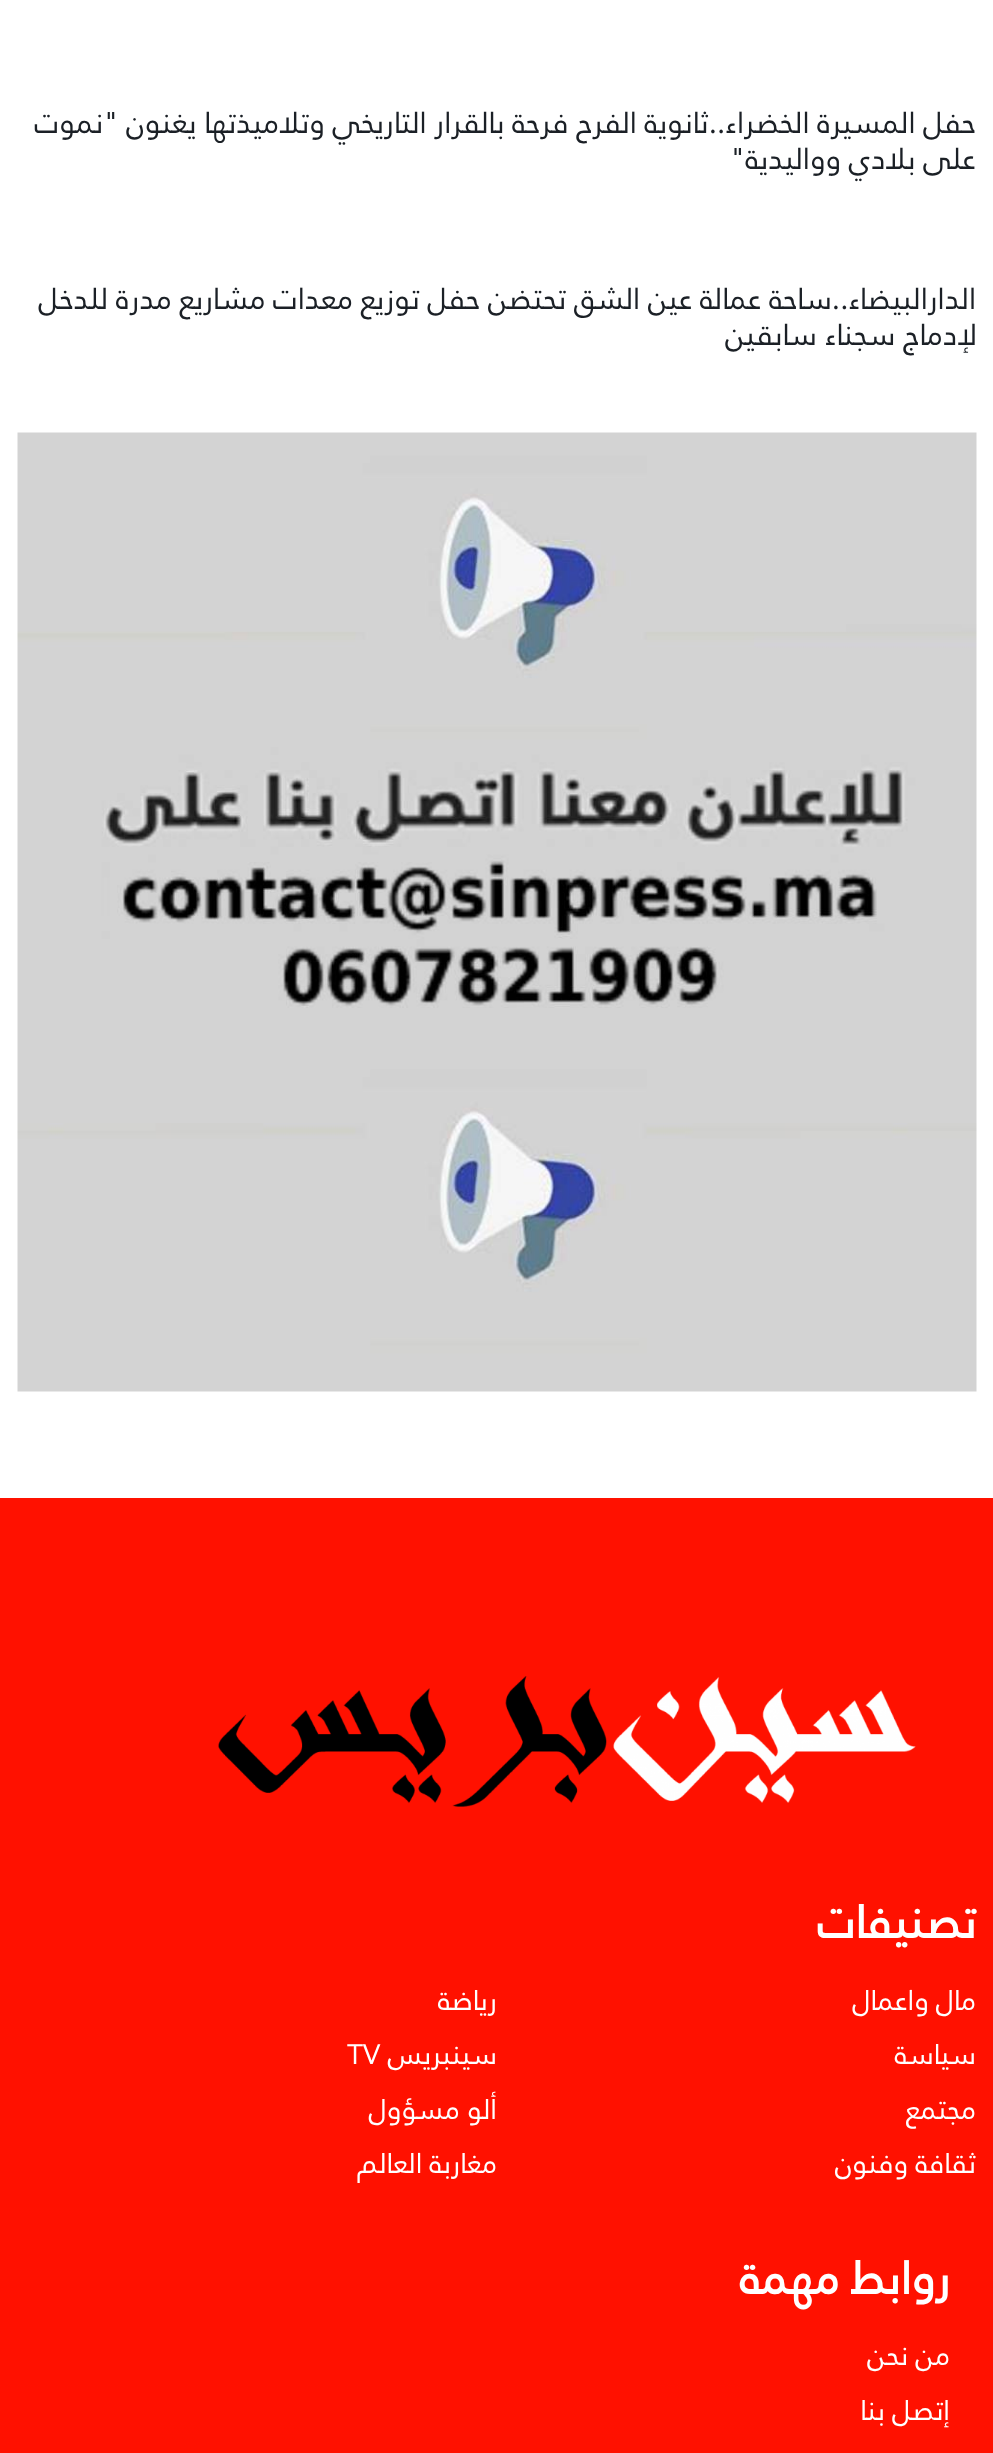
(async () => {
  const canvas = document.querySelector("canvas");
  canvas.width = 993;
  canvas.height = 2453;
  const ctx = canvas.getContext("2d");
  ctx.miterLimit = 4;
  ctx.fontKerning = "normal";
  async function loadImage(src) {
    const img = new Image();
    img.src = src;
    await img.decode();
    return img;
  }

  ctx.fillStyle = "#ffffff";
  ctx.fillRect(0, 0, 993, 2453);
  ctx.drawImage(await loadImage("img/1.png"), 17, 432, 960, 960);
  ctx.fillStyle = "#ff1100";
  ctx.fillRect(0, 1498, 993, 955);
  ctx.drawImage(await loadImage("img/2.png"), 218, 1676, 698, 131);
  ctx.direction = "rtl";
  ctx.font = "29.75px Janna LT";
  ctx.fillStyle = "#1b2026";
  for (const [text, x, y] of [
    ["حفل المسيرة الخضراء..ثانوية الفرح فرحة بالقرار التاريخي وتلاميذتها يغنون \"نموت", 976, 133],
    ["على بلادي وواليدية\"", 976, 169],
    ["الدارالبيضاء..ساحة عمالة عين الشق تحتضن حفل توزيع معدات مشاريع مدرة للدخل", 976, 309],
    ["لإدماج سجناء سابقين", 977, 345],
  ]) {
    ctx.fillText(text, x, y);
  }
  ctx.font = "bold 45.5px Janna LT";
  ctx.fillStyle = "#ffffff";
  ctx.fillText("تصنيفات", 976, 1938);
  ctx.font = "28px Janna LT";
  for (const [text, x, y] of [
    ["مال واعمال", 976, 2010],
    ["سياسة", 976, 2064],
    ["مجتمع", 976, 2119],
    ["ثقافة وفنون", 976, 2173],
    ["رياضة", 497, 2010],
    ["سينبريس", 497, 2064],
  ]) {
    ctx.fillText(text, x, y);
  }
  ctx.direction = "ltr";
  ctx.fillText("TV", 347, 2064);
  ctx.direction = "rtl";
  ctx.fillText("ألو مسؤول", 497, 2119);
  ctx.fillText("مغاربة العالم", 497, 2173);
  ctx.font = "bold 45.5px Janna LT";
  ctx.fillText("روابط مهمة", 950, 2294);
  ctx.font = "28px Janna LT";
  ctx.fillText("من نحن", 950, 2365);
  ctx.fillText("إتصل بنا", 950, 2420);
})();
